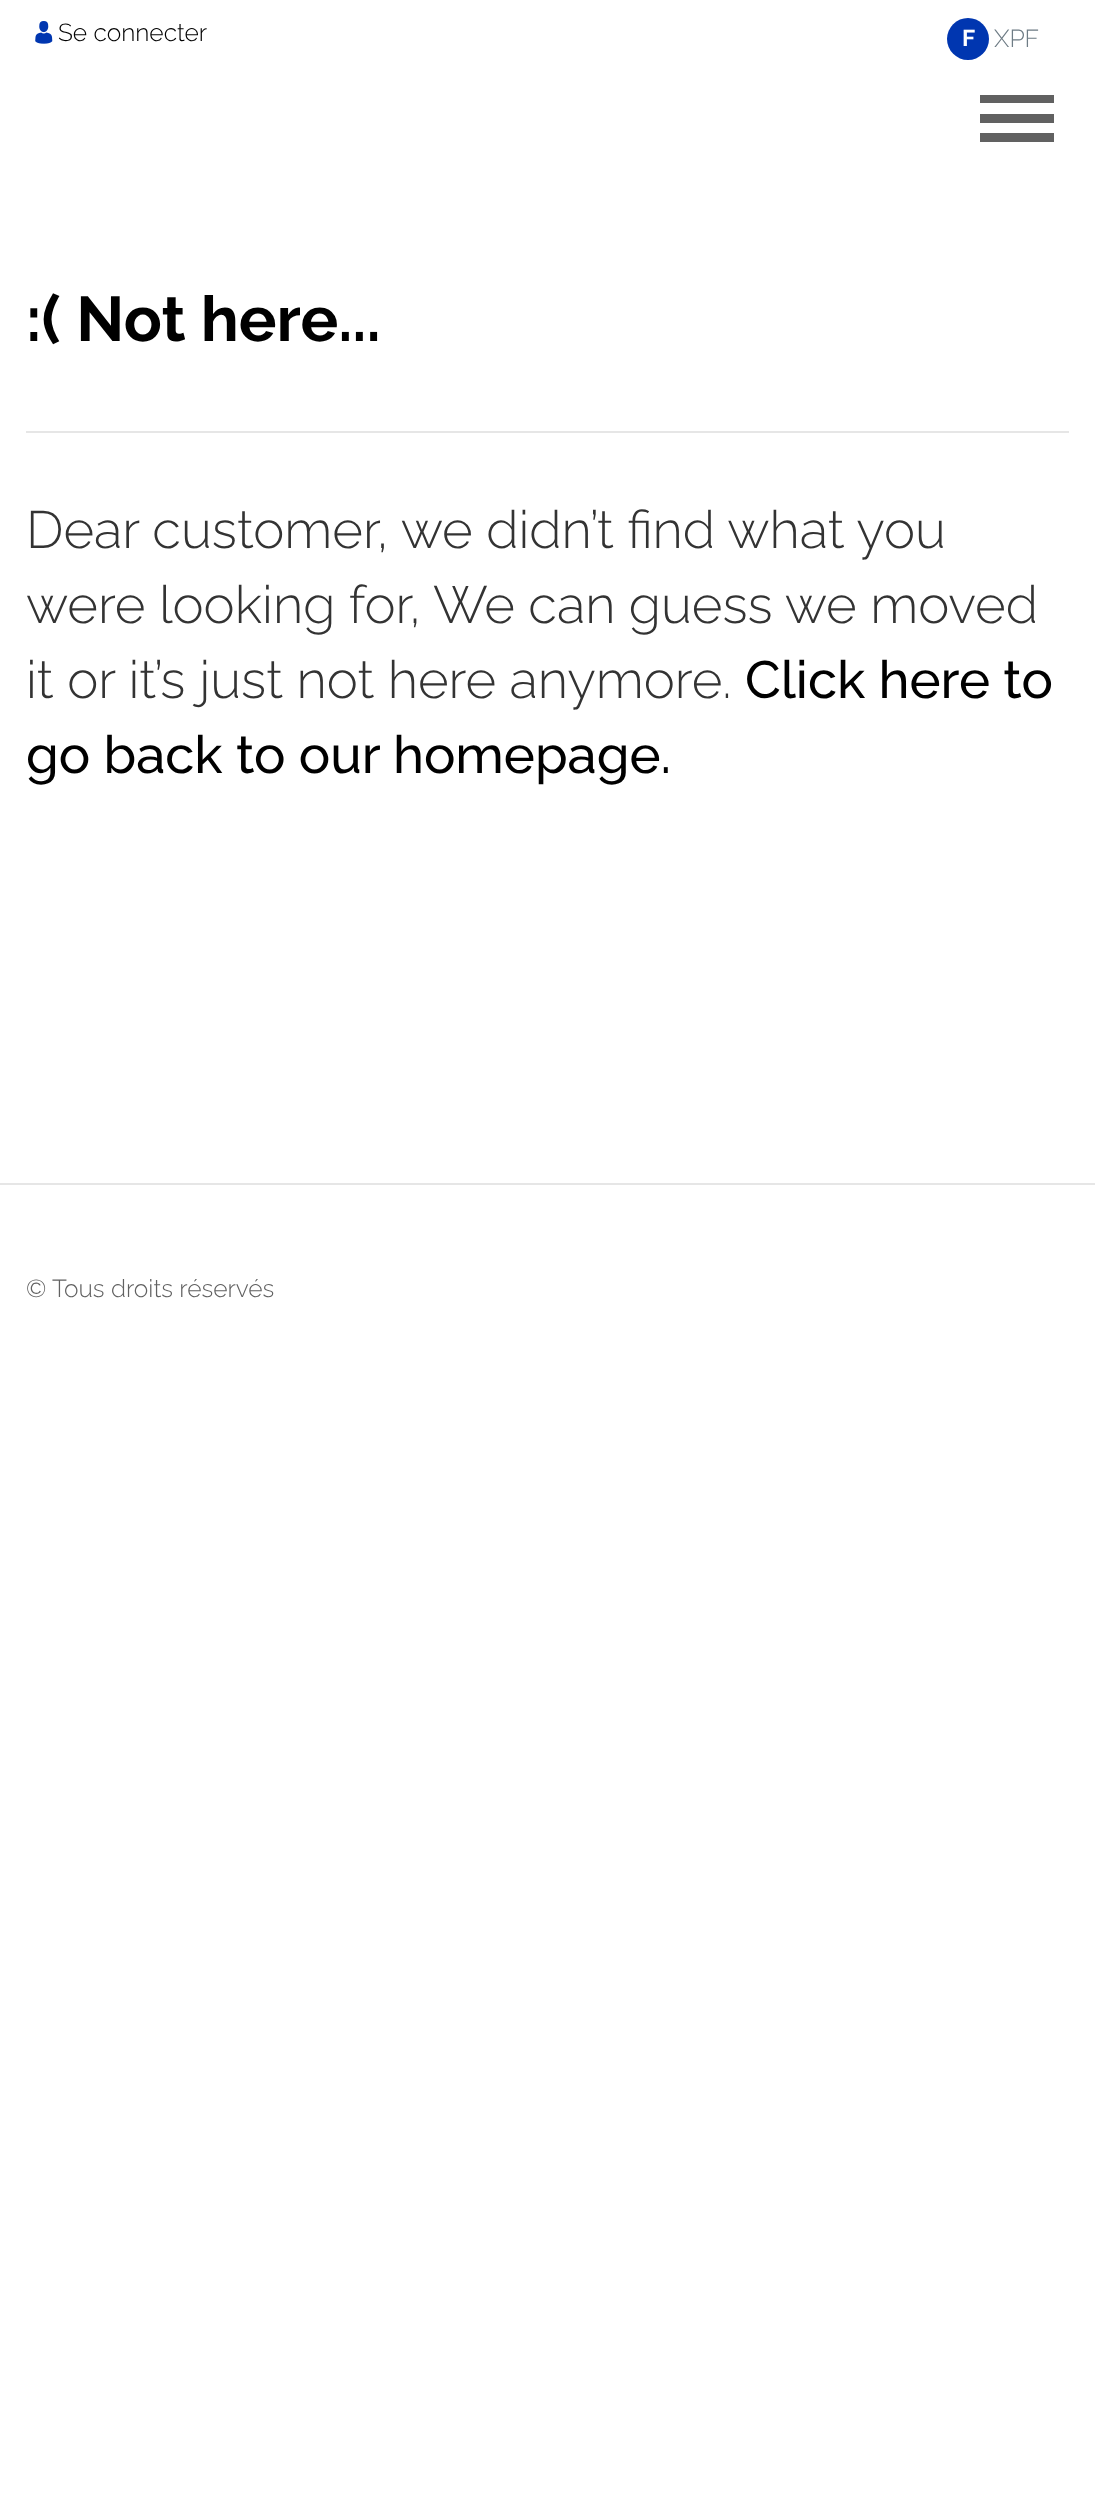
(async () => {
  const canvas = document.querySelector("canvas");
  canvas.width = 1095;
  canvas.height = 2518;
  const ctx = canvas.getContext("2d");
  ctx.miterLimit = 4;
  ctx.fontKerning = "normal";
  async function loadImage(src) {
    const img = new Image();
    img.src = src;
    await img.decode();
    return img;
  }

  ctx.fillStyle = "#ffffff";
  ctx.fillRect(0, 0, 1095, 2518);
  ctx.drawImage(await loadImage("img/1.png"), 35, 21, 18, 23);
  ctx.fillStyle = "#0036b0";
  ctx.beginPath();
  ctx.arc(968, 39, 21, 0, Math.PI * 2);
  ctx.fill();
  for (const [x, y, w, h, color] of [
    [980, 95, 74, 8, "#616161"],
    [980, 114, 74, 9, "#616161"],
    [980, 133, 74, 9, "#616161"],
    [26, 431, 1043, 2, "#e6e6e6"],
    [0, 1183, 1095, 2, "#e6e6e6"],
  ]) {
    ctx.fillStyle = color;
    ctx.fillRect(x, y, w, h);
  }
  ctx.font = "300 24.5px Raleway";
  ctx.fillStyle = "#000000";
  ctx.fillText("Se connecter", 58, 41);
  ctx.font = "bold 23px Raleway";
  ctx.fillStyle = "#ffffff";
  ctx.fillText("F", 962, 46);
  ctx.font = "300 24.5px Raleway";
  ctx.fillStyle = "#6e7c85";
  ctx.fillText("XPF", 994, 47);
  ctx.font = "bold 63px Raleway";
  ctx.fillStyle = "#000000";
  ctx.fillText(":( Not here...", 26, 341);
  ctx.font = "300 52.5px Raleway";
  ctx.fillStyle = "#333333";
  for (const [text, x, y] of [
    ["Dear customer, we didn’t find what you", 26, 548],
    ["were looking for, We can guess we moved", 26, 623],
    ["it or it’s just not here anymore.", 26, 698],
  ]) {
    ctx.fillText(text, x, y);
  }
  ctx.font = "500 52.5px Raleway";
  ctx.fillStyle = "#000000";
  ctx.fillText("Click here to", 745, 698);
  ctx.fillText("go back to our homepage.", 26, 773);
  ctx.font = "300 24.5px Raleway";
  ctx.fillStyle = "#616161";
  ctx.fillText("© Tous droits réservés", 26, 1297);
})();
